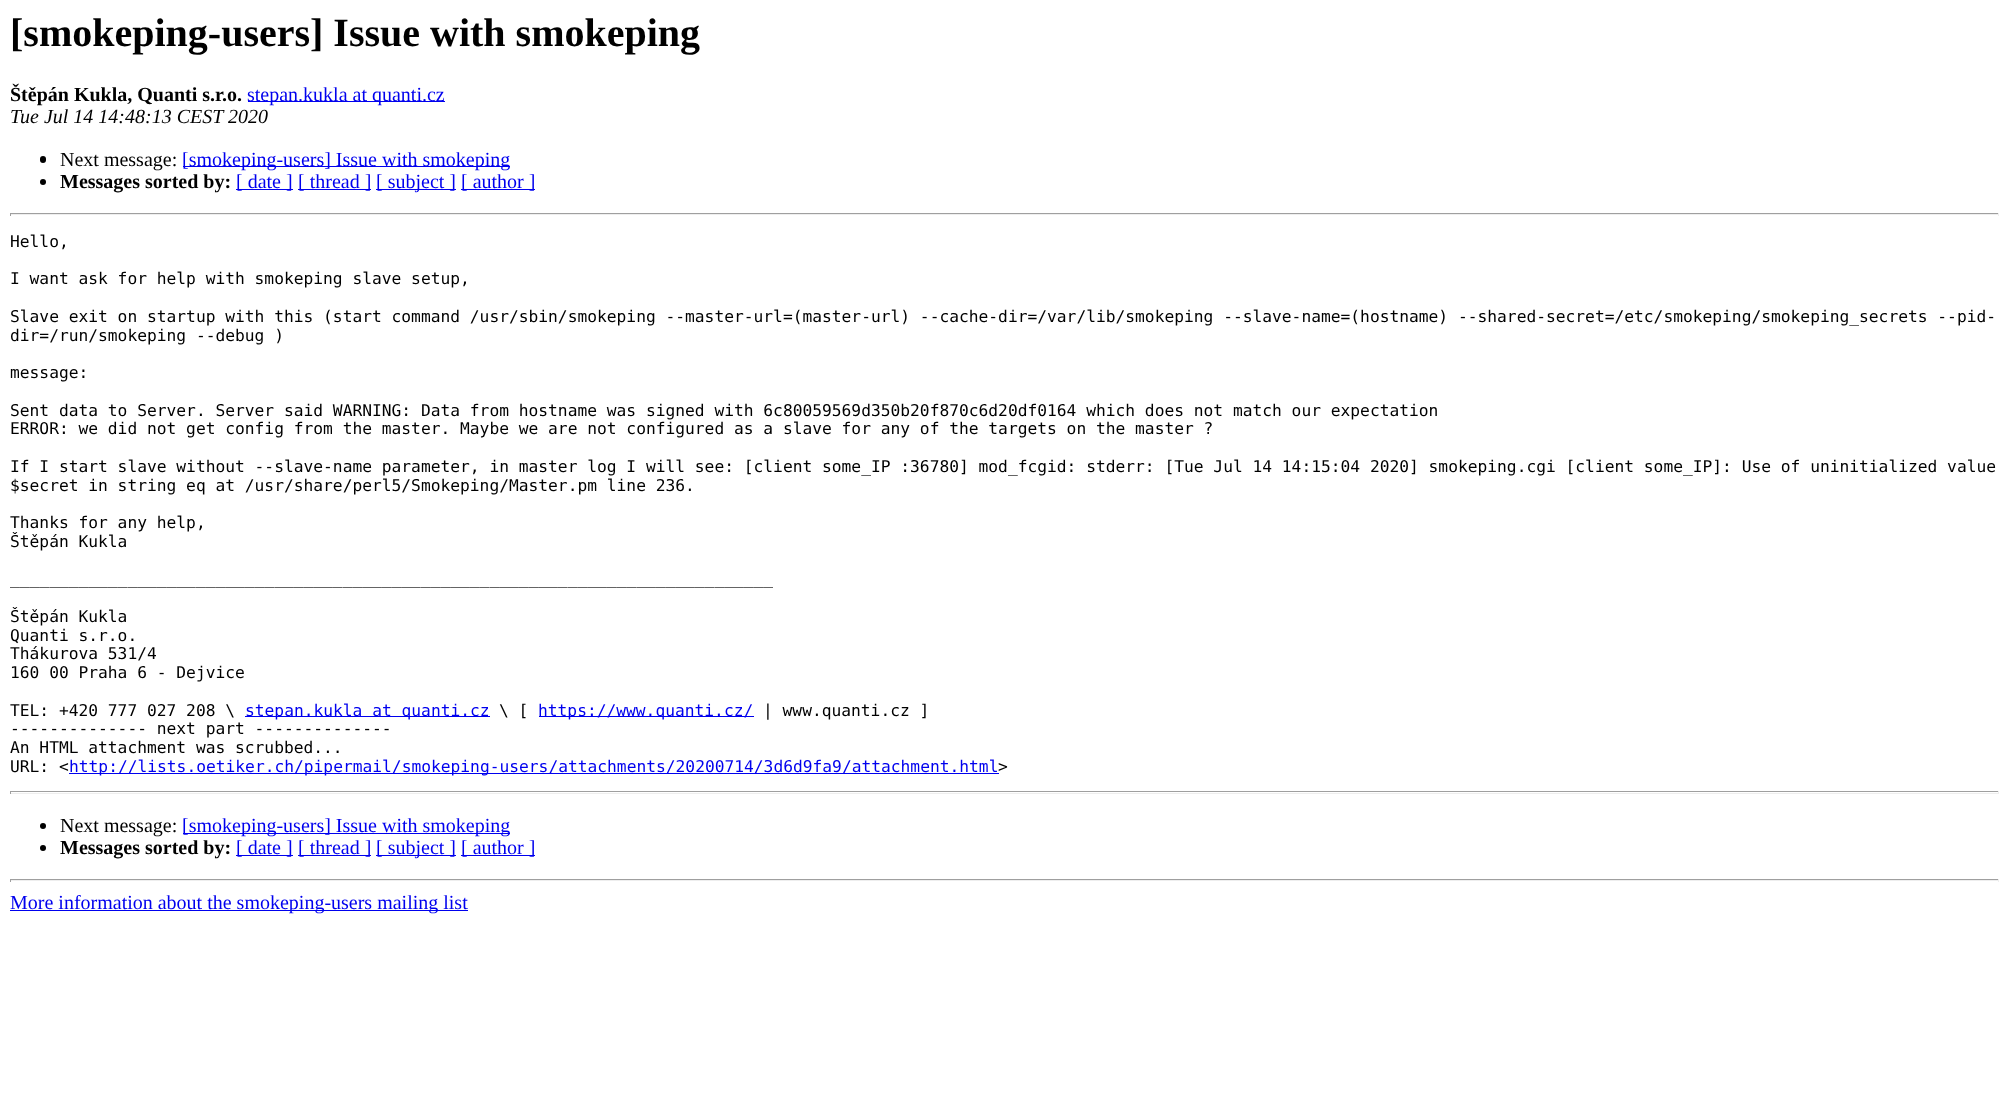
(async () => {
  const canvas = document.querySelector("canvas");
  canvas.width = 2008;
  canvas.height = 1098;
  const ctx = canvas.getContext("2d");
  ctx.miterLimit = 4;
  ctx.fontKerning = "normal";

  ctx.fillStyle = "#ffffff";
  ctx.fillRect(0, 0, 2008, 1098);
  ctx.fillStyle = "#0000ee";
  ctx.fillRect(248, 101, 197, 1);
  ctx.fillStyle = "#000000";
  ctx.beginPath();
  ctx.roundRect(40, 156, 6, 7, 3);
  ctx.fill();
  ctx.fillStyle = "#0000ee";
  ctx.fillRect(183, 166, 327, 1);
  ctx.fillStyle = "#000000";
  ctx.beginPath();
  ctx.arc(43, 182, 3, 0, Math.PI * 2);
  ctx.fill();
  for (const [x, y, w, h, color] of [
    [236, 189, 57, 1, "#0000ee"],
    [298, 189, 73, 1, "#0000ee"],
    [376, 189, 80, 1, "#0000ee"],
    [461, 189, 74, 1, "#0000ee"],
    [10, 213, 1989, 1, "#9f9f9f"],
    [1998, 213, 1, 3, "#eeeeee"],
    [10, 214, 1989, 1, "#eeeeee"],
    [10, 213, 1, 3, "#9f9f9f"],
    [245, 716, 245, 1, "#0000ee"],
    [539, 716, 215, 1, "#0000ee"],
    [69, 773, 930, 1, "#0000ee"],
    [10, 791, 1989, 1, "#9f9f9f"],
    [1998, 791, 1, 3, "#eeeeee"],
    [10, 793, 1989, 1, "#eeeeee"],
    [10, 791, 1, 3, "#9f9f9f"],
  ]) {
    ctx.fillStyle = color;
    ctx.fillRect(x, y, w, h);
  }
  ctx.fillStyle = "#000000";
  ctx.beginPath();
  ctx.arc(43, 826, 3, 0, Math.PI * 2);
  ctx.fill();
  ctx.fillStyle = "#0000ee";
  ctx.fillRect(183, 833, 327, 1);
  ctx.fillStyle = "#000000";
  ctx.beginPath();
  ctx.arc(43, 848, 3, 0, Math.PI * 2);
  ctx.fill();
  for (const [x, y, w, h, color] of [
    [236, 855, 57, 1, "#0000ee"],
    [298, 855, 73, 1, "#0000ee"],
    [376, 855, 80, 1, "#0000ee"],
    [461, 855, 74, 1, "#0000ee"],
    [10, 879, 1989, 1, "#9f9f9f"],
    [1998, 879, 1, 3, "#eeeeee"],
    [10, 880, 1989, 1, "#eeeeee"],
    [10, 879, 1, 3, "#9f9f9f"],
    [10, 910, 458, 1, "#0000ee"],
  ]) {
    ctx.fillStyle = color;
    ctx.fillRect(x, y, w, h);
  }
  ctx.font = "bold 40px Liberation Serif";
  ctx.fillStyle = "#000000";
  ctx.fillText("[smokeping-users] Issue with smokeping", 10, 46);
  ctx.font = "bold 20px Liberation Serif";
  ctx.fillText("Štěpán Kukla, Quanti s.r.o.", 10, 101);
  ctx.font = "20px Liberation Serif";
  ctx.fillStyle = "#0000ee";
  ctx.fillText("stepan.kukla at quanti.cz", 247, 101);
  ctx.font = "italic 20px Liberation Serif";
  ctx.fillStyle = "#000000";
  ctx.fillText("Tue Jul 14 14:48:13 CEST 2020", 10, 123);
  ctx.font = "20px Liberation Serif";
  ctx.fillText("Next message:", 60, 166);
  ctx.fillStyle = "#0000ee";
  ctx.fillText("[smokeping-users] Issue with smokeping", 182, 166);
  ctx.font = "bold 20px Liberation Serif";
  ctx.fillStyle = "#000000";
  ctx.fillText("Messages sorted by:", 60, 188);
  ctx.font = "20px Liberation Serif";
  ctx.fillStyle = "#0000ee";
  for (const [text, x, y] of [
    ["[ date ]", 236, 188],
    ["[ thread ]", 298, 188],
    ["[ subject ]", 376, 188],
    ["[ author ]", 461, 188],
  ]) {
    ctx.fillText(text, x, y);
  }
  ctx.font = "16.25px DejaVu Sans Mono";
  ctx.fillStyle = "#000000";
  for (const [text, x, y] of [
    ["Hello,", 10, 247],
    ["I want ask for help with smokeping slave setup,", 10, 284],
    ["Slave exit on startup with this (start command /usr/sbin/smokeping --master-url=(master-url) --cache-dir=/var/lib/smokeping --slave-name=(hostname) --shared-secret=/etc/smokeping/smokeping_secrets --pid-", 10, 322],
    ["dir=/run/smokeping --debug )", 10, 341],
    ["message:", 10, 378],
    ["Sent data to Server. Server said WARNING: Data from hostname was signed with 6c80059569d350b20f870c6d20df0164 which does not match our expectation", 10, 416],
    ["ERROR: we did not get config from the master. Maybe we are not configured as a slave for any of the targets on the master ?", 10, 434],
    ["If I start slave without --slave-name parameter, in master log I will see: [client some_IP :36780] mod_fcgid: stderr: [Tue Jul 14 14:15:04 2020] smokeping.cgi [client some_IP]: Use of uninitialized value", 10, 472],
    ["$secret in string eq at /usr/share/perl5/Smokeping/Master.pm line 236.", 10, 491],
    ["Thanks for any help,", 10, 528],
    ["Štěpán Kukla", 10, 547],
    ["______________________________________________________________________________", 10, 584],
    ["Štěpán Kukla", 10, 622],
    ["Quanti s.r.o.", 10, 641],
    ["Thákurova 531/4", 10, 659],
    ["160 00 Praha 6 - Dejvice", 10, 678],
    ["TEL: +420 777 027 208 \\", 10, 716],
  ]) {
    ctx.fillText(text, x, y);
  }
  ctx.fillStyle = "#0000ee";
  ctx.fillText("stepan.kukla at quanti.cz", 245, 716);
  ctx.fillStyle = "#000000";
  ctx.fillText("\\ [", 499, 716);
  ctx.fillStyle = "#0000ee";
  ctx.fillText("https://www.quanti.cz/", 538, 716);
  ctx.fillStyle = "#000000";
  for (const [text, x, y] of [
    ["| www.quanti.cz ]", 763, 716],
    ["-------------- next part --------------", 10, 734],
    ["An HTML attachment was scrubbed...", 10, 753],
    ["URL: <", 10, 772],
  ]) {
    ctx.fillText(text, x, y);
  }
  ctx.fillStyle = "#0000ee";
  ctx.fillText("http://lists.oetiker.ch/pipermail/smokeping-users/attachments/20200714/3d6d9fa9/attachment.html", 69, 772);
  ctx.fillStyle = "#000000";
  ctx.fillText(">", 998, 772);
  ctx.font = "20px Liberation Serif";
  ctx.fillText("Next message:", 60, 832);
  ctx.fillStyle = "#0000ee";
  ctx.fillText("[smokeping-users] Issue with smokeping", 182, 832);
  ctx.font = "bold 20px Liberation Serif";
  ctx.fillStyle = "#000000";
  ctx.fillText("Messages sorted by:", 60, 854);
  ctx.font = "20px Liberation Serif";
  ctx.fillStyle = "#0000ee";
  for (const [text, x, y] of [
    ["[ date ]", 236, 854],
    ["[ thread ]", 298, 854],
    ["[ subject ]", 376, 854],
    ["[ author ]", 461, 854],
    ["More information about the smokeping-users mailing list", 10, 909],
  ]) {
    ctx.fillText(text, x, y);
  }
})();
